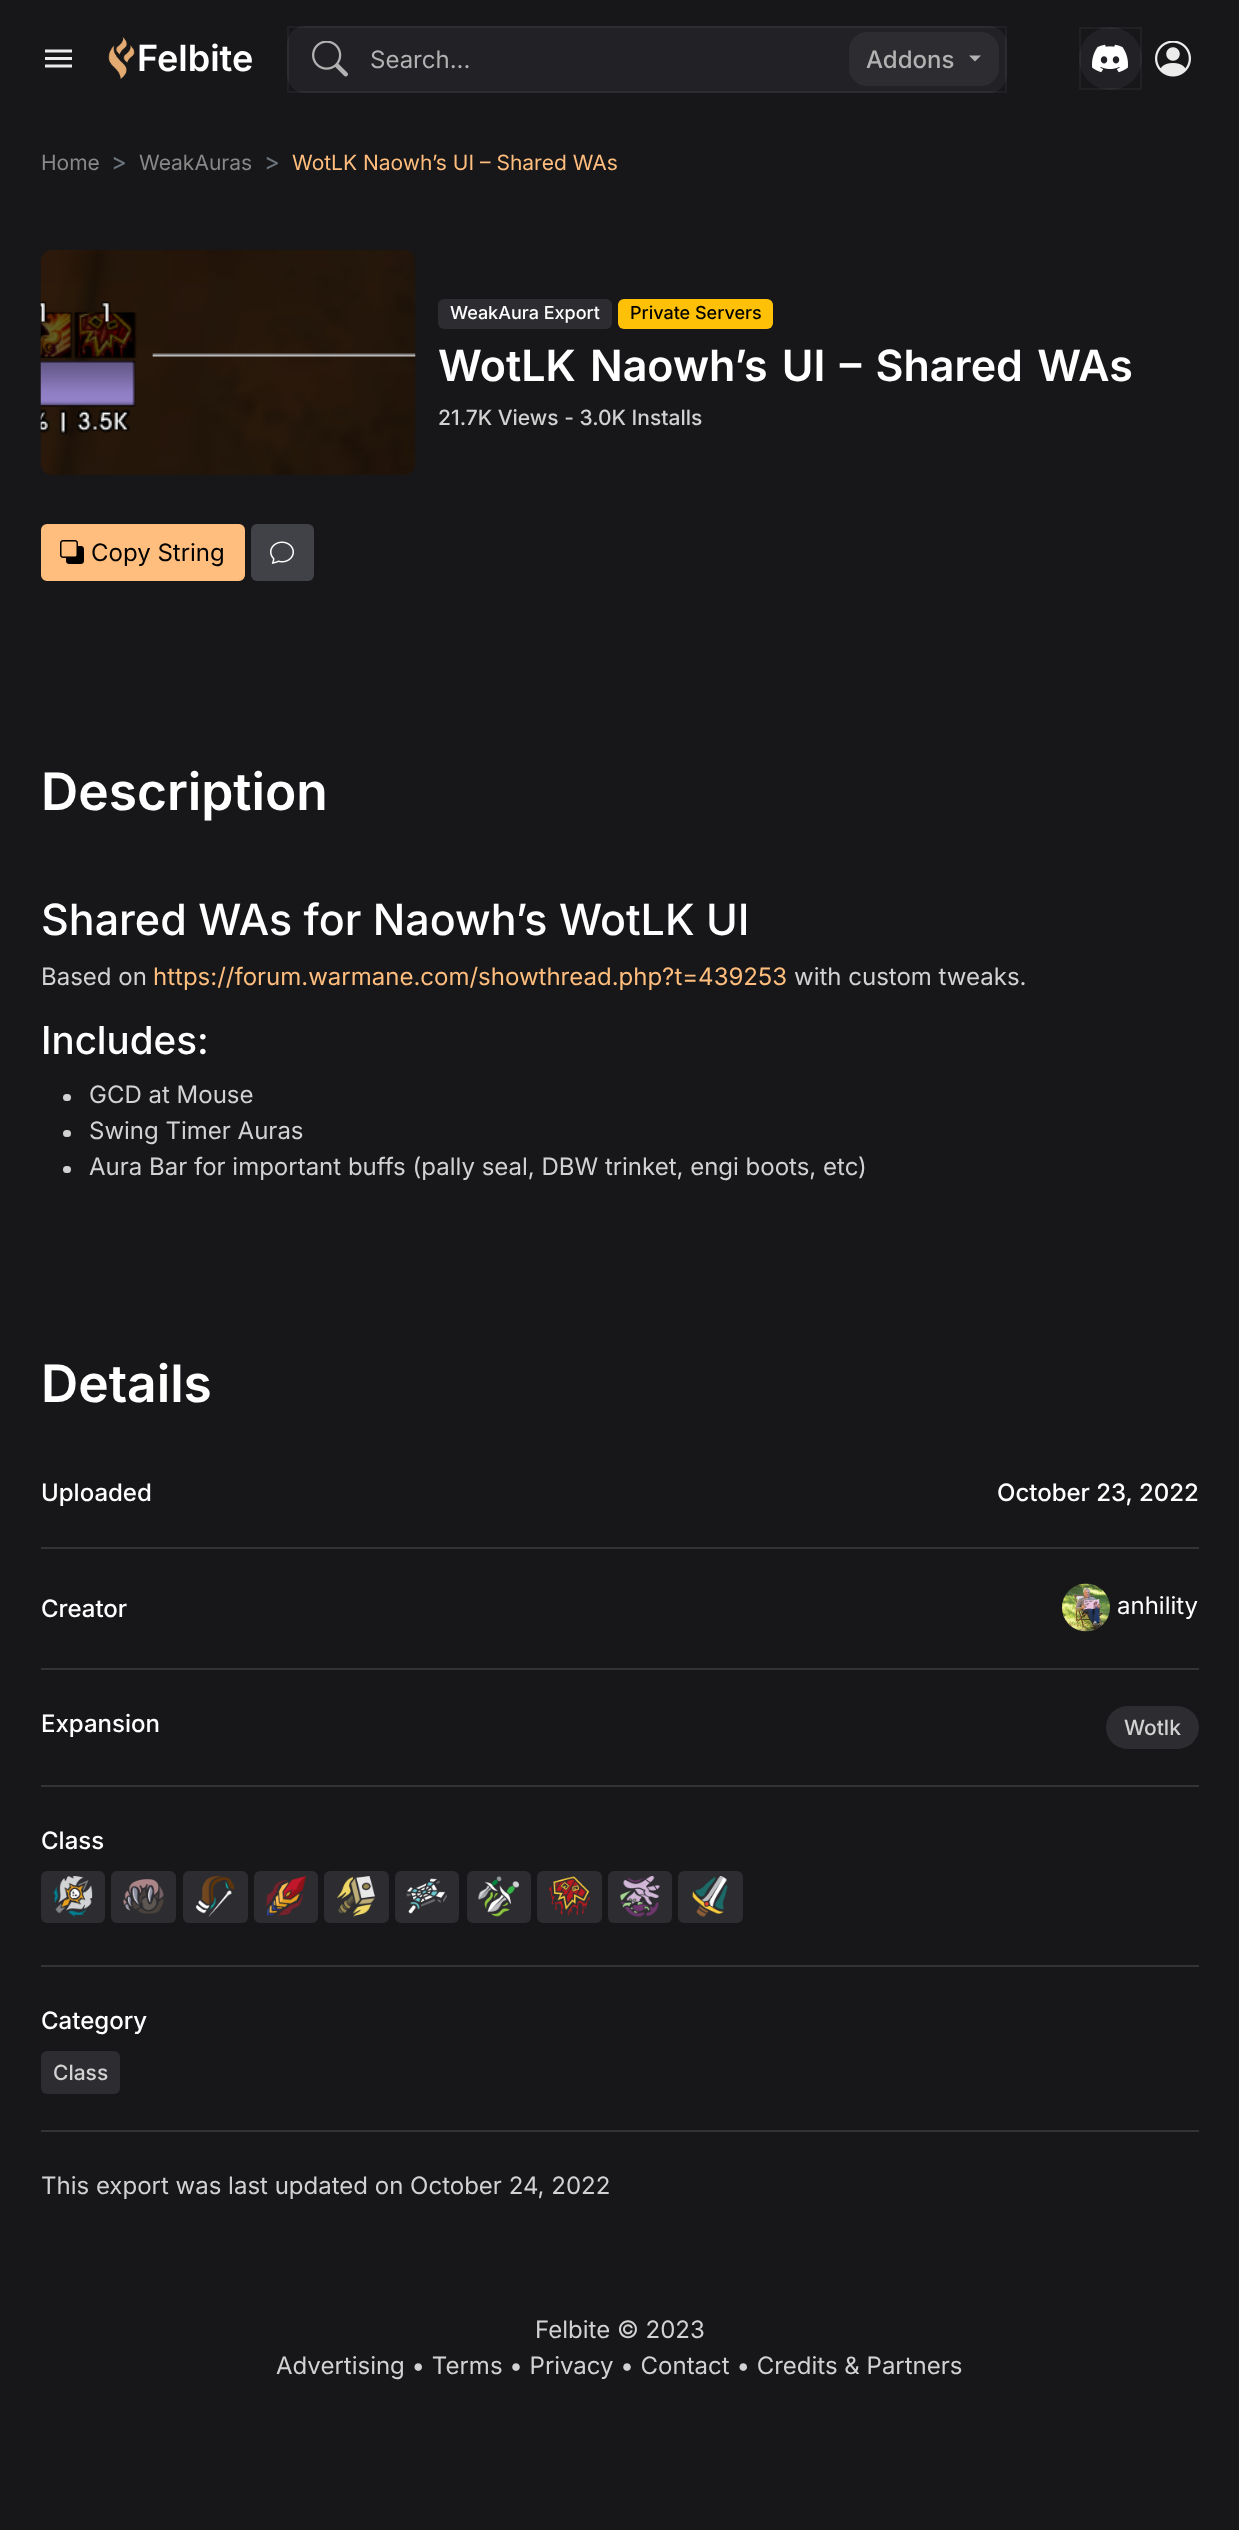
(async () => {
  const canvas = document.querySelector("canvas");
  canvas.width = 1239;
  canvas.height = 2530;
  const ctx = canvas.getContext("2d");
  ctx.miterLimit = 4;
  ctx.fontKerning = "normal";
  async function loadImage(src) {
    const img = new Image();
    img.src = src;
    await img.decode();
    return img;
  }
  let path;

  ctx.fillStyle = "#17171a";
  ctx.fillRect(0, 0, 1239, 2530);
  ctx.drawImage(await loadImage("img/1.png"), 45, 49, 27, 19);
  ctx.drawImage(await loadImage("img/2.png"), 108, 37, 27, 42);
  ctx.fillStyle = "#222226";
  ctx.beginPath();
  ctx.roundRect(287, 26, 720, 67, 18);
  ctx.fill();
  ctx.strokeStyle = "rgba(235, 235, 255, 0.05)";
  ctx.lineWidth = 2;
  ctx.strokeRect(288, 27, 718, 65);
  ctx.drawImage(await loadImage("img/3.png"), 312, 41, 36, 36);
  ctx.fillStyle = "#2d2d31";
  ctx.beginPath();
  ctx.roundRect(849, 32, 150, 54, 18);
  ctx.fill();
  ctx.fillStyle = "#b2b2b2";
  path = new Path2D("M969 55.5H981L975 61.5Z");
  ctx.fill(path);
  ctx.fillStyle = "#222226";
  ctx.beginPath();
  ctx.arc(1110.5, 58.5, 31.5, 0, Math.PI * 2);
  ctx.fill();
  ctx.strokeRect(1080, 28, 61, 61);
  ctx.drawImage(await loadImage("img/4.png"), 1092, 44, 36, 29);
  ctx.drawImage(await loadImage("img/5.png"), 1155, 41, 36, 36);
  ctx.drawImage(await loadImage("img/6.png"), 40, 250, 376, 225);
  ctx.fillStyle = "#2d2d31";
  ctx.beginPath();
  ctx.roundRect(438, 299, 174, 30, 6);
  ctx.fill();
  ctx.fillStyle = "#ffc107";
  ctx.beginPath();
  ctx.roundRect(618, 299, 155, 30, 6);
  ctx.fill();
  ctx.fillStyle = "#ffbe7d";
  ctx.beginPath();
  ctx.roundRect(42, 525, 202, 55, 5);
  ctx.fill();
  ctx.strokeStyle = "#ffbe7d";
  ctx.stroke();
  ctx.drawImage(await loadImage("img/7.png"), 60, 540, 24, 24);
  ctx.fillStyle = "#414148";
  ctx.beginPath();
  ctx.roundRect(251, 524, 63, 57, 6);
  ctx.fill();
  ctx.drawImage(await loadImage("img/8.png"), 270, 541, 24, 23);
  ctx.fillStyle = "#d2d2d2";
  ctx.beginPath();
  ctx.roundRect(63, 1094, 8, 7, 3.5);
  ctx.fill();
  ctx.beginPath();
  ctx.roundRect(63, 1130, 8, 7, 3.5);
  ctx.fill();
  ctx.beginPath();
  ctx.roundRect(63, 1166, 8, 7, 3.5);
  ctx.fill();
  ctx.fillStyle = "#333333";
  ctx.fillRect(41, 1547, 1158, 2);
  ctx.fillRect(41, 1668, 1158, 2);
  ctx.drawImage(await loadImage("img/9.png"), 1062, 1583, 48, 49);
  ctx.fillRect(41, 1785, 1158, 2);
  ctx.fillStyle = "#2d2d31";
  ctx.beginPath();
  ctx.roundRect(1106, 1706, 93, 43, 21.5);
  ctx.fill();
  ctx.fillStyle = "#333333";
  ctx.fillRect(41, 1965, 1158, 2);
  ctx.fillStyle = "#2d2d31";
  ctx.beginPath();
  ctx.roundRect(41, 1871, 64, 52, 6);
  ctx.fill();
  ctx.drawImage(await loadImage("img/10.png"), 53, 1876, 40, 41);
  ctx.beginPath();
  ctx.roundRect(111, 1871, 65, 52, 6);
  ctx.fill();
  ctx.drawImage(await loadImage("img/11.png"), 123, 1879, 41, 35);
  ctx.beginPath();
  ctx.roundRect(183, 1871, 65, 52, 6);
  ctx.fill();
  ctx.drawImage(await loadImage("img/12.png"), 195, 1876, 40, 41);
  ctx.beginPath();
  ctx.roundRect(254, 1871, 64, 52, 6);
  ctx.fill();
  ctx.drawImage(await loadImage("img/13.png"), 265, 1876, 41, 41);
  ctx.beginPath();
  ctx.roundRect(324, 1871, 65, 52, 6);
  ctx.fill();
  ctx.drawImage(await loadImage("img/14.png"), 337, 1876, 38, 41);
  ctx.beginPath();
  ctx.roundRect(395, 1871, 64, 52, 6);
  ctx.fill();
  ctx.drawImage(await loadImage("img/15.png"), 406, 1878, 41, 36);
  ctx.beginPath();
  ctx.roundRect(467, 1871, 64, 52, 6);
  ctx.fill();
  ctx.drawImage(await loadImage("img/16.png"), 478, 1876, 41, 41);
  ctx.beginPath();
  ctx.roundRect(537, 1871, 65, 52, 6);
  ctx.fill();
  ctx.drawImage(await loadImage("img/17.png"), 549, 1876, 41, 40);
  ctx.beginPath();
  ctx.roundRect(608, 1871, 64, 52, 6);
  ctx.fill();
  ctx.drawImage(await loadImage("img/18.png"), 620, 1876, 40, 41);
  ctx.beginPath();
  ctx.roundRect(678, 1871, 65, 52, 6);
  ctx.fill();
  ctx.drawImage(await loadImage("img/19.png"), 692, 1876, 36, 41);
  ctx.fillStyle = "#333333";
  ctx.fillRect(41, 2130, 1158, 2);
  ctx.fillStyle = "#2d2d31";
  ctx.beginPath();
  ctx.roundRect(41, 2051, 79, 43, 6);
  ctx.fill();
  ctx.font = "600 36px Inter";
  ctx.fillStyle = "#ffffff";
  ctx.fillText("Felbite", 137, 71);
  ctx.font = "24px Inter";
  ctx.fillStyle = "#b2b2b2";
  ctx.fillText("Search...", 370, 68);
  ctx.font = "500 24px Inter";
  ctx.fillText("Addons", 866, 68);
  ctx.font = "21px Inter";
  ctx.fillStyle = "#888888";
  ctx.fillText("Home", 41, 170);
  ctx.font = "24px Inter";
  ctx.fillStyle = "#6c757d";
  ctx.fillText(">", 111, 170);
  ctx.font = "21px Inter";
  ctx.fillStyle = "#888888";
  ctx.fillText("WeakAuras", 139, 170);
  ctx.font = "24px Inter";
  ctx.fillStyle = "#6c757d";
  ctx.fillText(">", 264, 170);
  ctx.font = "21px Inter";
  ctx.fillStyle = "#ffbe7d";
  ctx.fillText("WotLK Naowh’s UI – Shared WAs", 292, 170);
  ctx.font = "500 18px Inter";
  ctx.fillStyle = "#ffffff";
  ctx.fillText("WeakAura Export", 450, 319);
  ctx.fillStyle = "#000000";
  ctx.fillText("Private Servers", 630, 319);
  ctx.wordSpacing = "3.5px";
  ctx.font = "600 43px Inter";
  ctx.fillStyle = "#ffffff";
  ctx.fillText("WotLK Naowh’s UI – Shared WAs", 438, 381);
  ctx.wordSpacing = "0px";
  ctx.font = "500 21px Inter";
  ctx.fillStyle = "#d2d2d2";
  ctx.fillText("21.7K Views - 3.0K Installs", 438, 425);
  ctx.font = "24px Inter";
  ctx.fillStyle = "#000000";
  ctx.fillText("Copy String", 91, 561);
  ctx.font = "600 51.5px Inter";
  ctx.fillStyle = "#ffffff";
  ctx.fillText("Description", 41, 810);
  ctx.font = "500 43px Inter";
  ctx.fillText("Shared WAs for Naowh’s WotLK UI", 41, 935);
  ctx.font = "24px Inter";
  ctx.fillStyle = "#d2d2d2";
  ctx.fillText("Based on", 41, 985);
  ctx.fillStyle = "#ffbe7d";
  ctx.fillText("https://forum.warmane.com/showthread.php?t=439253", 153, 985);
  ctx.fillStyle = "#d2d2d2";
  ctx.fillText("with custom tweaks.", 794, 985);
  ctx.font = "500 38.5px Inter";
  ctx.fillStyle = "#ffffff";
  ctx.fillText("Includes:", 41, 1054);
  ctx.font = "24px Inter";
  ctx.fillStyle = "#d2d2d2";
  for (const [text, x, y] of [
    ["GCD at Mouse", 89, 1103],
    ["Swing Timer Auras", 89, 1139],
    ["Aura Bar for important buffs (pally seal, DBW trinket, engi boots, etc)", 89, 1175],
  ]) {
    ctx.fillText(text, x, y);
  }
  ctx.font = "600 51.5px Inter";
  ctx.fillStyle = "#ffffff";
  ctx.fillText("Details", 41, 1402);
  ctx.font = "500 24px Inter";
  for (const [text, x, y] of [
    ["Uploaded", 41, 1501],
    ["October 23, 2022", 997, 1501],
    ["Creator", 41, 1617],
  ]) {
    ctx.fillText(text, x, y);
  }
  ctx.font = "24px Inter";
  ctx.fillText("anhility", 1117, 1614);
  ctx.font = "500 24px Inter";
  ctx.fillText("Expansion", 41, 1732);
  ctx.font = "500 21px Inter";
  ctx.fillStyle = "#d2d2d2";
  ctx.fillText("Wotlk", 1124, 1735);
  ctx.font = "500 24px Inter";
  ctx.fillStyle = "#ffffff";
  ctx.fillText("Class", 41, 1849);
  ctx.fillText("Category", 41, 2029);
  ctx.font = "500 21px Inter";
  ctx.fillStyle = "#d2d2d2";
  ctx.fillText("Class", 53, 2080);
  ctx.font = "24px Inter";
  for (const [text, x, y] of [
    ["This export was last updated on October 24, 2022", 41, 2194],
    ["Felbite © 2023", 535, 2338],
    ["Advertising • Terms • Privacy • Contact • Credits & Partners", 276, 2374],
  ]) {
    ctx.fillText(text, x, y);
  }
})();
